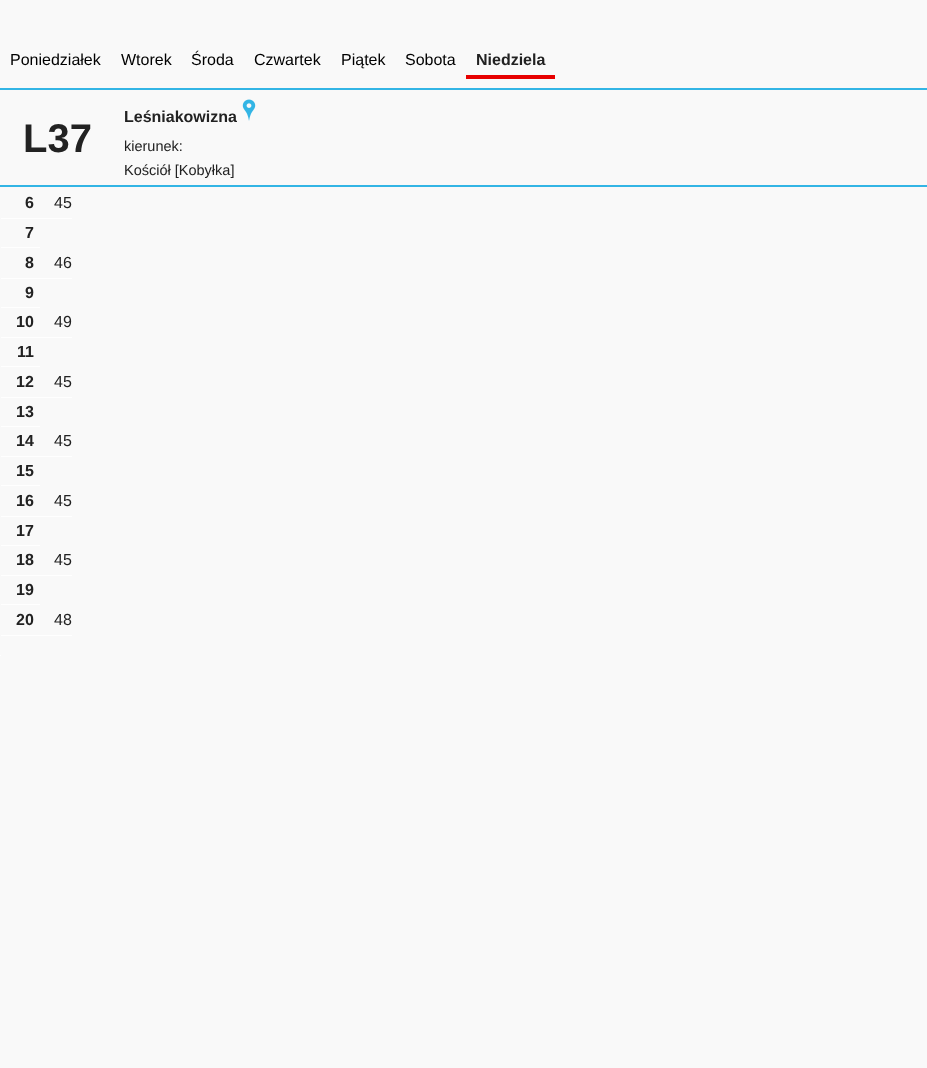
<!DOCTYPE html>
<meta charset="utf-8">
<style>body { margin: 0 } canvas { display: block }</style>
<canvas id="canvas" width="927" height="1068"></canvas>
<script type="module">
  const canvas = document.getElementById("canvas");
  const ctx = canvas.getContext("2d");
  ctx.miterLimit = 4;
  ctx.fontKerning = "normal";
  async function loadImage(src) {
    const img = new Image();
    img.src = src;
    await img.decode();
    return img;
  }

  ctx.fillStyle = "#f9f9f9";
  ctx.fillRect(0, 0, 927, 1068);
  ctx.font = "16px Liberation Sans";
  ctx.fillStyle = "#000000";
  ctx.fillText("Poniedziałek", 10, 65);
  ctx.fillText("Wtorek", 121, 65);
  ctx.fillText("Środa", 191, 65);
  ctx.fillText("Czwartek", 254, 65);
  ctx.fillText("Piątek", 341, 65);
  ctx.fillText("Sobota", 405, 65);
  ctx.fillStyle = "#e70000";
  ctx.fillRect(466, 75, 89, 4);
  ctx.font = "bold 16px Liberation Sans";
  ctx.fillStyle = "#222222";
  ctx.fillText("Niedziela", 476, 65);
  ctx.fillStyle = "#33b5e5";
  ctx.fillRect(0, 88, 927, 2);
  ctx.fillRect(0, 185, 927, 2);
  ctx.font = "bold 40px Liberation Sans";
  ctx.fillStyle = "#222222";
  ctx.fillText("L37", 23, 152);
  ctx.font = "bold 16px Liberation Sans";
  ctx.fillText("Leśniakowizna", 124, 122);
  ctx.drawImage(await loadImage("img1.png"), 242, 99, 14, 22);
  ctx.font = "14.5px Liberation Sans";
  ctx.fillText("kierunek:", 124, 151);
  ctx.fillText("Kościół [Kobyłka]", 124, 175);
  ctx.font = "bold 16px Liberation Sans";
  ctx.fillText("6", 25, 208);
  ctx.fillStyle = "#ffffff";
  ctx.fillRect(1, 218, 71, 1);
  ctx.font = "16px Liberation Sans";
  ctx.fillStyle = "#222222";
  ctx.fillText("45", 54, 208);
  ctx.fillStyle = "#ffffff";
  ctx.fillRect(1, 247, 39, 1);
  ctx.font = "bold 16px Liberation Sans";
  ctx.fillStyle = "#222222";
  ctx.fillText("7", 25, 238);
  ctx.fillText("8", 25, 268);
  ctx.fillStyle = "#ffffff";
  ctx.fillRect(1, 278, 71, 1);
  ctx.font = "16px Liberation Sans";
  ctx.fillStyle = "#222222";
  ctx.fillText("46", 54, 268);
  ctx.fillStyle = "#ffffff";
  ctx.fillRect(1, 307, 39, 1);
  ctx.font = "bold 16px Liberation Sans";
  ctx.fillStyle = "#222222";
  ctx.fillText("9", 25, 298);
  ctx.fillText("10", 16, 327);
  ctx.fillStyle = "#ffffff";
  ctx.fillRect(1, 337, 71, 1);
  ctx.font = "16px Liberation Sans";
  ctx.fillStyle = "#222222";
  ctx.fillText("49", 54, 327);
  ctx.fillStyle = "#ffffff";
  ctx.fillRect(1, 366, 39, 1);
  ctx.font = "bold 16px Liberation Sans";
  ctx.fillStyle = "#222222";
  ctx.fillText("11", 17, 357);
  ctx.fillText("12", 16, 387);
  ctx.fillStyle = "#ffffff";
  ctx.fillRect(1, 397, 71, 1);
  ctx.font = "16px Liberation Sans";
  ctx.fillStyle = "#222222";
  ctx.fillText("45", 54, 387);
  ctx.fillStyle = "#ffffff";
  ctx.fillRect(1, 426, 39, 1);
  ctx.font = "bold 16px Liberation Sans";
  ctx.fillStyle = "#222222";
  ctx.fillText("13", 16, 417);
  ctx.fillText("14", 16, 446);
  ctx.fillStyle = "#ffffff";
  ctx.fillRect(1, 456, 71, 1);
  ctx.font = "16px Liberation Sans";
  ctx.fillStyle = "#222222";
  ctx.fillText("45", 54, 446);
  ctx.fillStyle = "#ffffff";
  ctx.fillRect(1, 485, 39, 1);
  ctx.font = "bold 16px Liberation Sans";
  ctx.fillStyle = "#222222";
  ctx.fillText("15", 16, 476);
  ctx.fillText("16", 16, 506);
  ctx.fillStyle = "#ffffff";
  ctx.fillRect(1, 516, 71, 1);
  ctx.font = "16px Liberation Sans";
  ctx.fillStyle = "#222222";
  ctx.fillText("45", 54, 506);
  ctx.fillStyle = "#ffffff";
  ctx.fillRect(1, 545, 39, 1);
  ctx.font = "bold 16px Liberation Sans";
  ctx.fillStyle = "#222222";
  ctx.fillText("17", 16, 536);
  ctx.fillText("18", 16, 565);
  ctx.fillStyle = "#ffffff";
  ctx.fillRect(1, 575, 71, 1);
  ctx.font = "16px Liberation Sans";
  ctx.fillStyle = "#222222";
  ctx.fillText("45", 54, 565);
  ctx.fillStyle = "#ffffff";
  ctx.fillRect(1, 604, 39, 1);
  ctx.font = "bold 16px Liberation Sans";
  ctx.fillStyle = "#222222";
  ctx.fillText("19", 16, 595);
  ctx.fillText("20", 16, 625);
  ctx.fillStyle = "#ffffff";
  ctx.fillRect(1, 635, 71, 1);
  ctx.font = "16px Liberation Sans";
  ctx.fillStyle = "#222222";
  ctx.fillText("48", 54, 625);
  ctx.fillStyle = "#ffffff";
  ctx.fillRect(0, 655, 1, 1);
</script>
